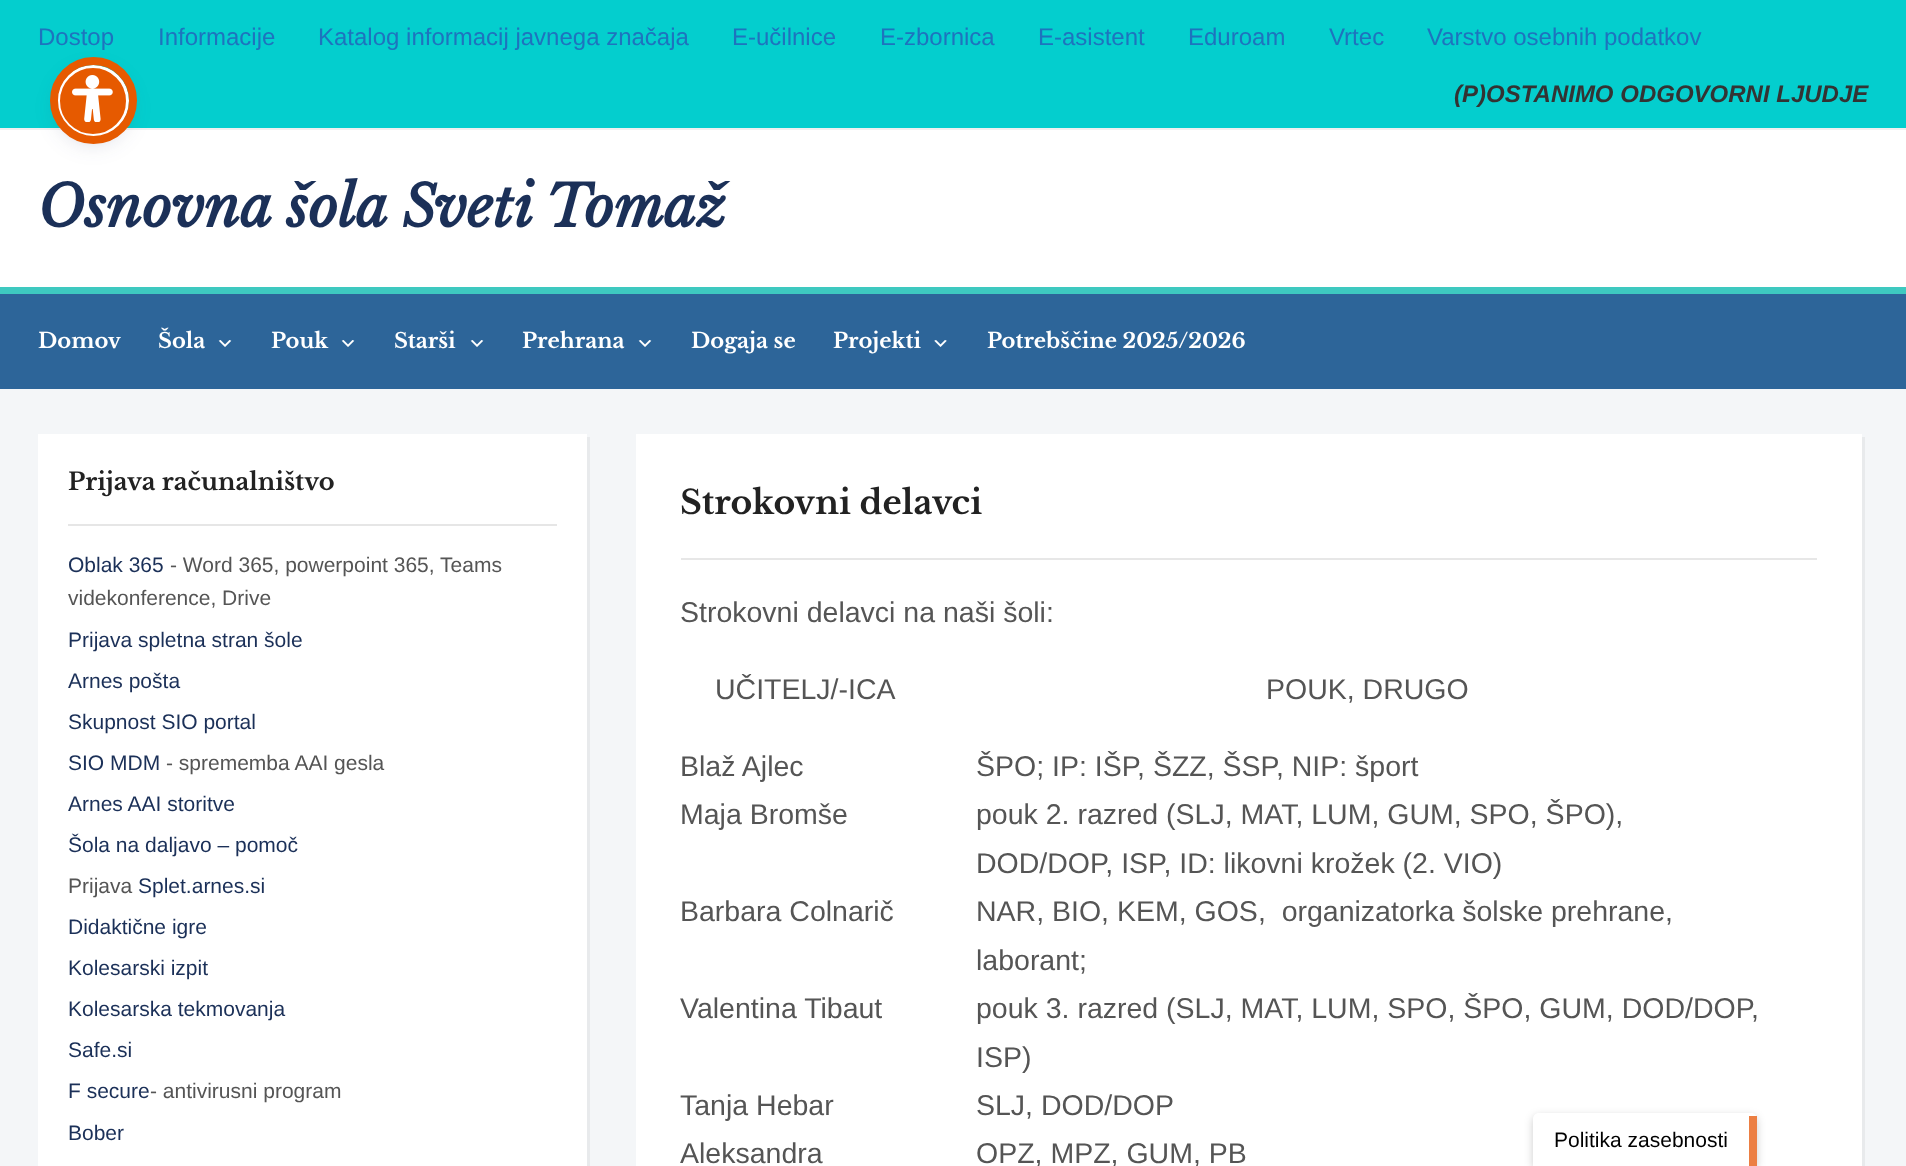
<!DOCTYPE html>
<meta charset="utf-8">
<style>body { margin: 0 } canvas { display: block }</style>
<canvas id="canvas" width="1906" height="1166"></canvas>
<script type="module">
  const canvas = document.getElementById("canvas");
  const ctx = canvas.getContext("2d");
  ctx.miterLimit = 4;
  ctx.fontKerning = "normal";
  async function loadImage(src) {
    const img = new Image();
    img.src = src;
    await img.decode();
    return img;
  }

  ctx.fillStyle = "#f4f6f8";
  ctx.fillRect(0, 0, 1906, 1166);
  ctx.fillStyle = "#ffffff";
  ctx.fillRect(0, 130, 1906, 157);
  ctx.fillStyle = "#04cece";
  ctx.fillRect(0, 0, 1906, 128);
  ctx.fillStyle = "#f0f0f0";
  ctx.fillRect(0, 128, 1906, 2);
  ctx.font = "24px Liberation Sans";
  ctx.fillStyle = "#1e73be";
  ctx.fillText("Dostop", 38, 45);
  ctx.fillText("Informacije", 158, 45);
  ctx.fillText("Katalog informacij javnega značaja", 318, 45);
  ctx.fillText("E-učilnice", 732, 45);
  ctx.fillText("E-zbornica", 880, 45);
  ctx.fillText("E-asistent", 1038, 45);
  ctx.fillText("Eduroam", 1188, 45);
  ctx.fillText("Vrtec", 1329, 45);
  ctx.fillText("Varstvo osebnih podatkov", 1427, 45);
  ctx.font = "italic bold 24px Liberation Sans";
  ctx.fillStyle = "#333333";
  ctx.fillText("(P)OSTANIMO ODGOVORNI LJUDJE", 1454, 102);
  ctx.font = "italic bold 57px Libre Baskerville";
  ctx.fillStyle = "#1b3058";
  ctx.fillText("Osnovna šola Sveti Tomaž", 38, 227);
  ctx.fillStyle = "#2d6599";
  ctx.fillRect(0, 294, 1906, 95);
  ctx.fillStyle = "#3ec9c0";
  ctx.fillRect(0, 287, 1906, 7);
  ctx.font = "bold 21px Libre Baskerville";
  ctx.fillStyle = "#ffffff";
  ctx.fillText("Domov", 38, 348);
  ctx.fillText("Šola", 158, 348);
  ctx.drawImage(await loadImage("img1.png"), 218, 340, 14, 7);
  ctx.fillText("Pouk", 271, 348);
  ctx.drawImage(await loadImage("img1.png"), 341, 340, 14, 7);
  ctx.fillText("Starši", 394, 348);
  ctx.drawImage(await loadImage("img1.png"), 470, 340, 14, 7);
  ctx.fillText("Prehrana", 522, 348);
  ctx.drawImage(await loadImage("img1.png"), 638, 340, 14, 7);
  ctx.fillText("Dogaja se", 691, 348);
  ctx.fillText("Projekti", 833, 348);
  ctx.drawImage(await loadImage("img2.png"), 934, 340, 13, 7);
  ctx.fillText("Potrebščine 2025/2026", 987, 348);
  ctx.fillStyle = "#e8eaec";
  ctx.beginPath();
  ctx.moveTo(41, 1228);
  ctx.lineTo(41, 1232);
  ctx.lineTo(590, 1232);
  ctx.lineTo(590, 437);
  ctx.lineTo(586, 437);
  ctx.lineTo(586, 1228);
  ctx.closePath();
  ctx.fill();
  ctx.fillStyle = "#ffffff";
  ctx.fillRect(38, 434, 549, 732);
  ctx.fillStyle = "#e6e6e6";
  ctx.fillRect(68, 524, 489, 2);
  ctx.font = "bold 24px Libre Baskerville";
  ctx.fillStyle = "#222222";
  ctx.fillText("Prijava računalništvo", 68, 490);
  ctx.font = "21px Liberation Sans";
  ctx.fillStyle = "#1b3058";
  ctx.fillText("Oblak 365", 68, 572);
  ctx.fillStyle = "#555555";
  ctx.fillText("- Word 365, powerpoint 365, Teams", 170, 572);
  ctx.fillText("videkonference, Drive", 68, 605);
  ctx.fillStyle = "#1b3058";
  ctx.fillText("Prijava spletna stran šole", 68, 647);
  ctx.fillText("Arnes pošta", 68, 688);
  ctx.fillText("Skupnost SIO portal", 68, 729);
  ctx.fillText("SIO MDM", 68, 770);
  ctx.fillStyle = "#555555";
  ctx.fillText("- sprememba AAI gesla", 166, 770);
  ctx.fillStyle = "#1b3058";
  ctx.fillText("Arnes AAI storitve", 68, 811);
  ctx.fillText("Šola na daljavo – pomoč", 68, 852);
  ctx.fillStyle = "#555555";
  ctx.fillText("Prijava", 68, 893);
  ctx.fillStyle = "#1b3058";
  ctx.fillText("Splet.arnes.si", 138, 893);
  ctx.fillText("Didaktične igre", 68, 934);
  ctx.fillText("Kolesarski izpit", 68, 975);
  ctx.fillText("Kolesarska tekmovanja", 68, 1016);
  ctx.fillText("Safe.si", 68, 1057);
  ctx.fillText("F secure", 68, 1098);
  ctx.fillStyle = "#555555";
  ctx.fillText("- antivirusni program", 150, 1098);
  ctx.fillStyle = "#1b3058";
  ctx.fillText("Bober", 68, 1140);
  ctx.fillStyle = "#e8eaec";
  ctx.beginPath();
  ctx.moveTo(639, 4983);
  ctx.lineTo(639, 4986);
  ctx.lineTo(1865, 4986);
  ctx.lineTo(1865, 437);
  ctx.lineTo(1862, 437);
  ctx.lineTo(1862, 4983);
  ctx.closePath();
  ctx.fill();
  ctx.fillStyle = "#ffffff";
  ctx.fillRect(636, 434, 1226, 732);
  ctx.font = "bold 33px Libre Baskerville";
  ctx.fillStyle = "#222222";
  ctx.fillText("Strokovni delavci", 680, 514);
  ctx.fillStyle = "#e7e7e7";
  ctx.fillRect(681, 558, 1136, 2);
  ctx.font = "28.5px Liberation Sans";
  ctx.fillStyle = "#555555";
  ctx.fillText("Strokovni delavci na naši šoli:", 680, 622);
  ctx.fillText("UČITELJ/-ICA", 715, 699);
  ctx.fillText("POUK, DRUGO", 1266, 699);
  ctx.fillText("Blaž Ajlec", 680, 776);
  ctx.fillText("ŠPO; IP: IŠP, ŠZZ, ŠSP, NIP: šport", 976, 776);
  ctx.fillText("Maja Bromše", 680, 824);
  ctx.fillText("pouk 2. razred (SLJ, MAT, LUM, GUM, SPO, ŠPO),", 976, 824);
  ctx.fillText("DOD/DOP, ISP, ID: likovni krožek (2. VIO)", 976, 873);
  ctx.fillText("Barbara Colnarič", 680, 921);
  ctx.fillText("NAR, BIO, KEM, GOS,  organizatorka šolske prehrane,", 976, 921);
  ctx.fillText("laborant;", 976, 970);
  ctx.fillText("Valentina Tibaut", 680, 1018);
  ctx.fillText("pouk 3. razred (SLJ, MAT, LUM, SPO, ŠPO, GUM, DOD/DOP,", 976, 1018);
  ctx.fillText("ISP)", 976, 1067);
  ctx.fillText("Tanja Hebar", 680, 1115);
  ctx.fillText("SLJ, DOD/DOP", 976, 1115);
  ctx.fillText("Aleksandra", 680, 1163);
  ctx.fillText("OPZ, MPZ, GUM, PB", 976, 1163);
  ctx.fillStyle = "rgba(93, 100, 148, 0.2)";
  ctx.filter = "blur(3px)";
  ctx.beginPath();
  ctx.roundRect(57, 68, 72, 72, 36);
  ctx.fill();
  ctx.filter = "none";
  ctx.fillStyle = "rgba(37, 44, 97, 0.15)";
  ctx.filter = "blur(11px)";
  ctx.beginPath();
  ctx.roundRect(57, 72, 72, 72, 36);
  ctx.fill();
  ctx.filter = "none";
  ctx.fillStyle = "#e65a00";
  ctx.beginPath();
  ctx.arc(93, 101, 34.5, 0, Math.PI * 2);
  ctx.fill();
  ctx.strokeStyle = "#ffffff";
  ctx.lineWidth = 3;
  ctx.stroke();
  ctx.beginPath();
  ctx.arc(93.5, 100.5, 39.5, 0, Math.PI * 2);
  ctx.strokeStyle = "#e65a00";
  ctx.lineWidth = 8;
  ctx.stroke();
  ctx.drawImage(await loadImage("img3.png"), 72, 75, 41, 47);
  ctx.fillStyle = "rgba(0, 0, 0, 0.2)";
  ctx.filter = "blur(4px)";
  ctx.beginPath();
  ctx.roundRect(1533, 1116, 224, 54, 6);
  ctx.fill();
  ctx.filter = "none";
  ctx.fillStyle = "#ffffff";
  ctx.beginPath();
  ctx.moveTo(1539, 1113);
  ctx.lineTo(1751, 1113);
  ctx.bezierCurveTo(1754.5, 1113, 1757, 1115.5, 1757, 1119);
  ctx.lineTo(1757, 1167);
  ctx.lineTo(1533, 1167);
  ctx.lineTo(1533, 1119);
  ctx.bezierCurveTo(1533, 1115.5, 1535.5, 1113, 1539, 1113);
  ctx.closePath();
  ctx.fill();
  ctx.fillStyle = "#ec7f43";
  ctx.fillRect(1749, 1116, 8, 50);
  ctx.font = "21px Liberation Sans";
  ctx.fillStyle = "#000000";
  ctx.fillText("Politika zasebnosti", 1554, 1147);
</script>
